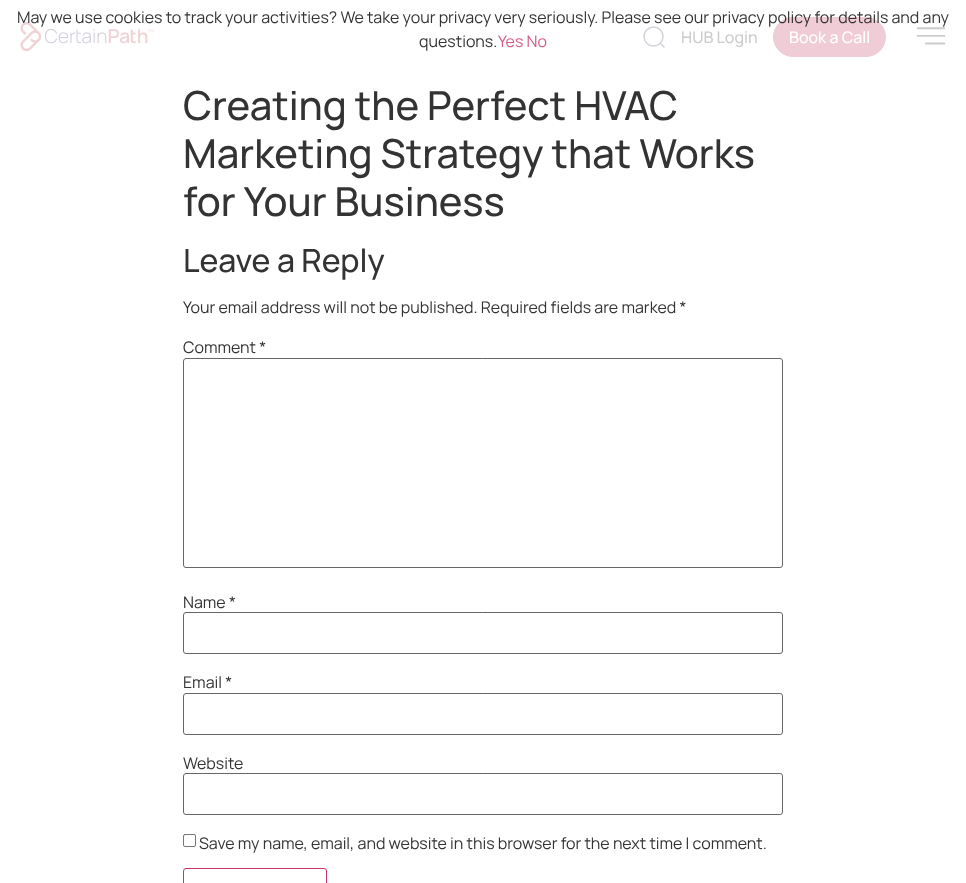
<!DOCTYPE html>
<meta charset="utf-8">
<style>body { margin: 0 } canvas { display: block }</style>
<canvas id="canvas" width="966" height="883"></canvas>
<script type="module">
  const canvas = document.getElementById("canvas");
  const ctx = canvas.getContext("2d");
  ctx.miterLimit = 4;
  ctx.fontKerning = "normal";
  async function loadImage(src) {
    const img = new Image();
    img.src = src;
    await img.decode();
    return img;
  }

  ctx.fillStyle = "#ffffff";
  ctx.fillRect(0, 0, 966, 883);
  ctx.drawImage(await loadImage("img1.png"), 20, 22, 134, 29);
  ctx.beginPath();
  ctx.arc(653.5, 36.5, 9.5, 0, Math.PI * 2);
  ctx.strokeStyle = "#d2d4db";
  ctx.lineWidth = 1.5;
  ctx.stroke();
  ctx.fillStyle = "#f0ccd6";
  ctx.beginPath();
  ctx.roundRect(773.5, 17.5, 112, 39, 19.5);
  ctx.fill();
  ctx.strokeStyle = "#f0ccd6";
  ctx.lineWidth = 1;
  ctx.stroke();
  ctx.font = "16px Manrope";
  ctx.fillStyle = "#333333";
  ctx.fillText("May we use cookies to track your activities? We take your privacy very seriously. Please see our privacy policy for details and any", 17, 23);
  ctx.fillText("questions.", 419, 47);
  ctx.fillStyle = "#d65c85";
  ctx.fillText("Yes No", 498, 47);
  ctx.beginPath();
  ctx.moveTo(660.5, 43.5);
  ctx.lineTo(664, 47);
  ctx.strokeStyle = "#d2d4db";
  ctx.lineWidth = 1.5;
  ctx.lineCap = "round";
  ctx.stroke();
  ctx.font = "500 16px Manrope";
  ctx.fillStyle = "#cccccc";
  ctx.fillText("HUB Login", 681, 43);
  ctx.fillStyle = "#ffffff";
  ctx.fillText("Book a Call", 789, 43);
  ctx.drawImage(await loadImage("img2.png"), 916, 27, 30, 18);
  ctx.font = "500 40px Manrope";
  ctx.fillStyle = "#333333";
  ctx.fillText("Creating the Perfect HVAC", 183, 120);
  ctx.fillText("Marketing Strategy that Works", 183, 168);
  ctx.fillText("for Your Business", 183, 216);
  ctx.font = "500 32px Manrope";
  ctx.fillText("Leave a Reply", 183, 272);
  ctx.font = "16px Manrope";
  ctx.fillText("Your email address will not be published. Required fields are marked *", 183, 313);
  ctx.fillText("Comment *", 183, 353);
  ctx.beginPath();
  ctx.roundRect(183.5, 358.5, 599, 209, 2.5);
  ctx.strokeStyle = "#666666";
  ctx.lineWidth = 1;
  ctx.stroke();
  ctx.fillText("Name *", 183, 608);
  ctx.beginPath();
  ctx.roundRect(183.5, 612.5, 599, 41, 2.5);
  ctx.stroke();
  ctx.fillText("Email *", 183, 688);
  ctx.beginPath();
  ctx.roundRect(183.5, 693.5, 599, 41, 2.5);
  ctx.stroke();
  ctx.fillText("Website", 183, 769);
  ctx.beginPath();
  ctx.roundRect(183.5, 773.5, 599, 41, 2.5);
  ctx.stroke();
  ctx.beginPath();
  ctx.roundRect(183.5, 834.5, 12, 12, 1.5);
  ctx.strokeStyle = "#767676";
  ctx.stroke();
  ctx.fillText("Save my name, email, and website in this browser for the next time I comment.", 199, 849);
  ctx.beginPath();
  ctx.roundRect(183.5, 868.5, 143, 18, 2.5);
  ctx.strokeStyle = "#cc3366";
  ctx.stroke();
</script>
